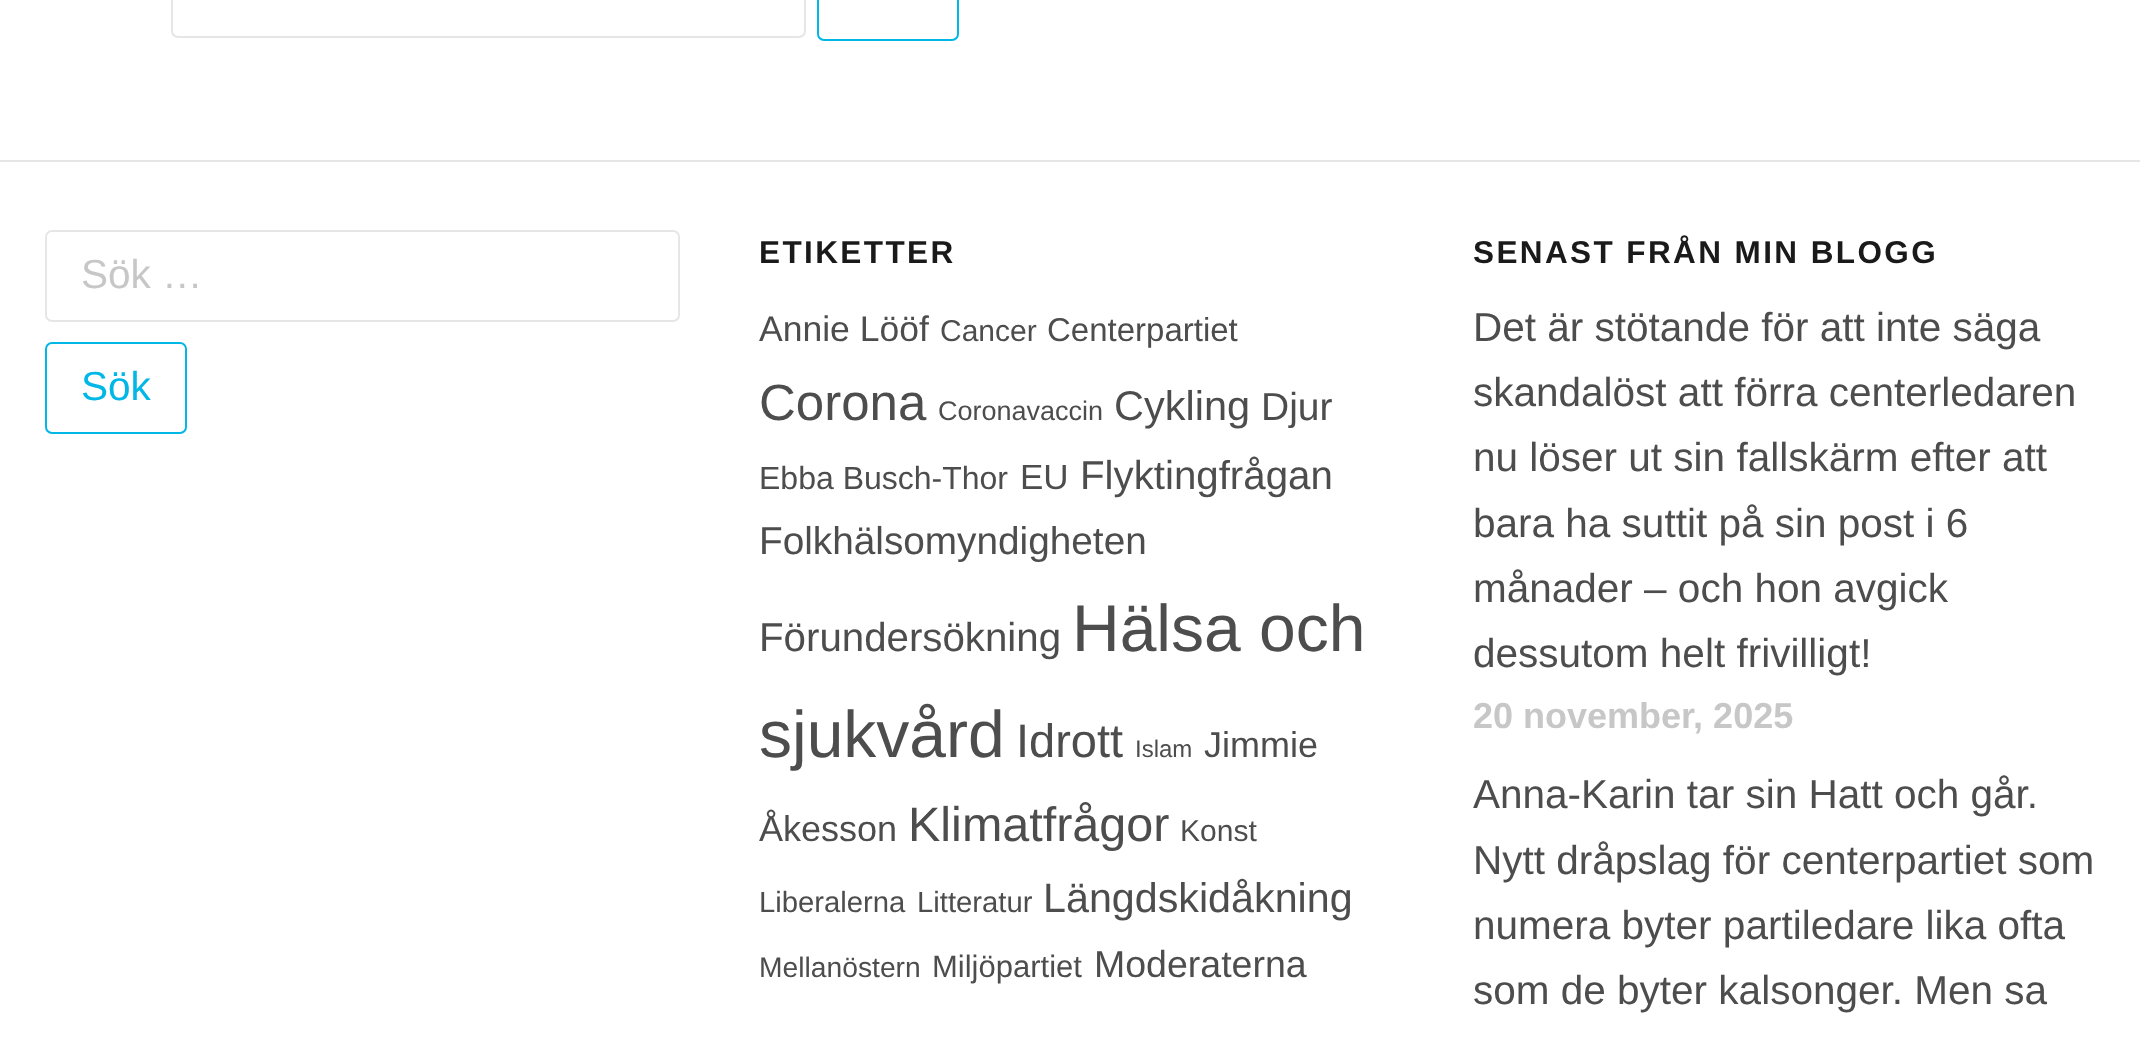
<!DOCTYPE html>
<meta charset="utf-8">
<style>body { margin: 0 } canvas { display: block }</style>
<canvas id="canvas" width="2140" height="1048"></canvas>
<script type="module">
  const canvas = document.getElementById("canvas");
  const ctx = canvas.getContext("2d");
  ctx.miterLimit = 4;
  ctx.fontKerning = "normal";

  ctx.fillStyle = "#ffffff";
  ctx.fillRect(0, 0, 2140, 1048);
  ctx.beginPath();
  ctx.roundRect(172, -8, 633, 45, 6);
  ctx.strokeStyle = "#e6e6e6";
  ctx.lineWidth = 2;
  ctx.stroke();
  ctx.beginPath();
  ctx.roundRect(818, -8, 140, 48, 6);
  ctx.strokeStyle = "#00b7e6";
  ctx.stroke();
  ctx.fillStyle = "#e6e6e6";
  ctx.fillRect(0, 160, 2140, 2);
  ctx.beginPath();
  ctx.roundRect(46, 231, 633, 90, 6);
  ctx.strokeStyle = "#e6e6e6";
  ctx.stroke();
  ctx.font = "40.5px Arimo";
  ctx.fillStyle = "#c7c7c7";
  ctx.fillText("Sök …", 81, 288);
  ctx.beginPath();
  ctx.roundRect(46, 343, 140, 90, 6);
  ctx.strokeStyle = "#00b7e6";
  ctx.stroke();
  ctx.fillStyle = "#00b7e6";
  ctx.fillText("Sök", 81, 400);
  ctx.letterSpacing = "2.4px";
  ctx.font = "bold 31.5px Arimo";
  ctx.fillStyle = "#1a1a1a";
  ctx.fillText("ETIKETTER", 759, 263);
  ctx.letterSpacing = "0px";
  ctx.font = "35.5px Arimo";
  ctx.fillStyle = "#4d4d4d";
  ctx.fillText("Annie Lööf", 759, 341);
  ctx.font = "30px Arimo";
  ctx.fillText("Cancer", 940, 341);
  ctx.font = "33px Arimo";
  ctx.fillText("Centerpartiet", 1047, 341);
  ctx.font = "51px Arimo";
  ctx.fillText("Corona", 759, 420);
  ctx.font = "27px Arimo";
  ctx.fillText("Coronavaccin", 938, 420);
  ctx.font = "41.5px Arimo";
  ctx.fillText("Cykling", 1114, 420);
  ctx.font = "39px Arimo";
  ctx.fillText("Djur", 1261, 420);
  ctx.font = "32px Arimo";
  ctx.fillText("Ebba Busch-Thor", 759, 489);
  ctx.font = "35px Arimo";
  ctx.fillText("EU", 1020, 489);
  ctx.font = "40.25px Arimo";
  ctx.fillText("Flyktingfrågan", 1080, 489);
  ctx.font = "38.75px Arimo";
  ctx.fillText("Folkhälsomyndigheten", 759, 554);
  ctx.font = "40.25px Arimo";
  ctx.fillText("Förundersökning", 759, 651);
  ctx.font = "66px Arimo";
  ctx.fillText("Hälsa och", 1072, 651);
  ctx.fillText("sjukvård", 759, 757);
  ctx.font = "47px Arimo";
  ctx.fillText("Idrott", 1016, 757);
  ctx.font = "24px Arimo";
  ctx.fillText("Islam", 1135, 757);
  ctx.font = "36px Arimo";
  ctx.fillText("Jimmie", 1204, 757);
  ctx.fillText("Åkesson", 759, 841);
  ctx.font = "48.5px Arimo";
  ctx.fillText("Klimatfrågor", 908, 841);
  ctx.font = "30px Arimo";
  ctx.fillText("Konst", 1180, 841);
  ctx.font = "29.25px Arimo";
  ctx.fillText("Liberalerna", 759, 912);
  ctx.fillText("Litteratur", 917, 912);
  ctx.font = "41.25px Arimo";
  ctx.fillText("Längdskidåkning", 1043, 912);
  ctx.font = "28.25px Arimo";
  ctx.fillText("Mellanöstern", 759, 977);
  ctx.font = "31px Arimo";
  ctx.fillText("Miljöpartiet", 932, 977);
  ctx.font = "37.5px Arimo";
  ctx.fillText("Moderaterna", 1094, 977);
  ctx.letterSpacing = "2.4px";
  ctx.font = "bold 31.5px Arimo";
  ctx.fillStyle = "#1a1a1a";
  ctx.fillText("SENAST FRÅN MIN BLOGG", 1473, 263);
  ctx.letterSpacing = "0px";
  ctx.font = "40.5px Arimo";
  ctx.fillStyle = "#4d4d4d";
  ctx.fillText("Det är stötande för att inte säga", 1473, 341);
  ctx.fillText("skandalöst att förra centerledaren", 1473, 406);
  ctx.fillText("nu löser ut sin fallskärm efter att", 1473, 471);
  ctx.fillText("bara ha suttit på sin post i 6", 1473, 537);
  ctx.fillText("månader – och hon avgick", 1473, 602);
  ctx.fillText("dessutom helt frivilligt!", 1473, 667);
  ctx.font = "bold 36px Arimo";
  ctx.fillStyle = "#c7c7c7";
  ctx.fillText("20 november, 2025", 1473, 728);
  ctx.font = "40.5px Arimo";
  ctx.fillStyle = "#4d4d4d";
  ctx.fillText("Anna-Karin tar sin Hatt och går.", 1473, 808);
  ctx.fillText("Nytt dråpslag för centerpartiet som", 1473, 874);
  ctx.fillText("numera byter partiledare lika ofta", 1473, 939);
  ctx.fillText("som de byter kalsonger. Men sa", 1473, 1004);
</script>
